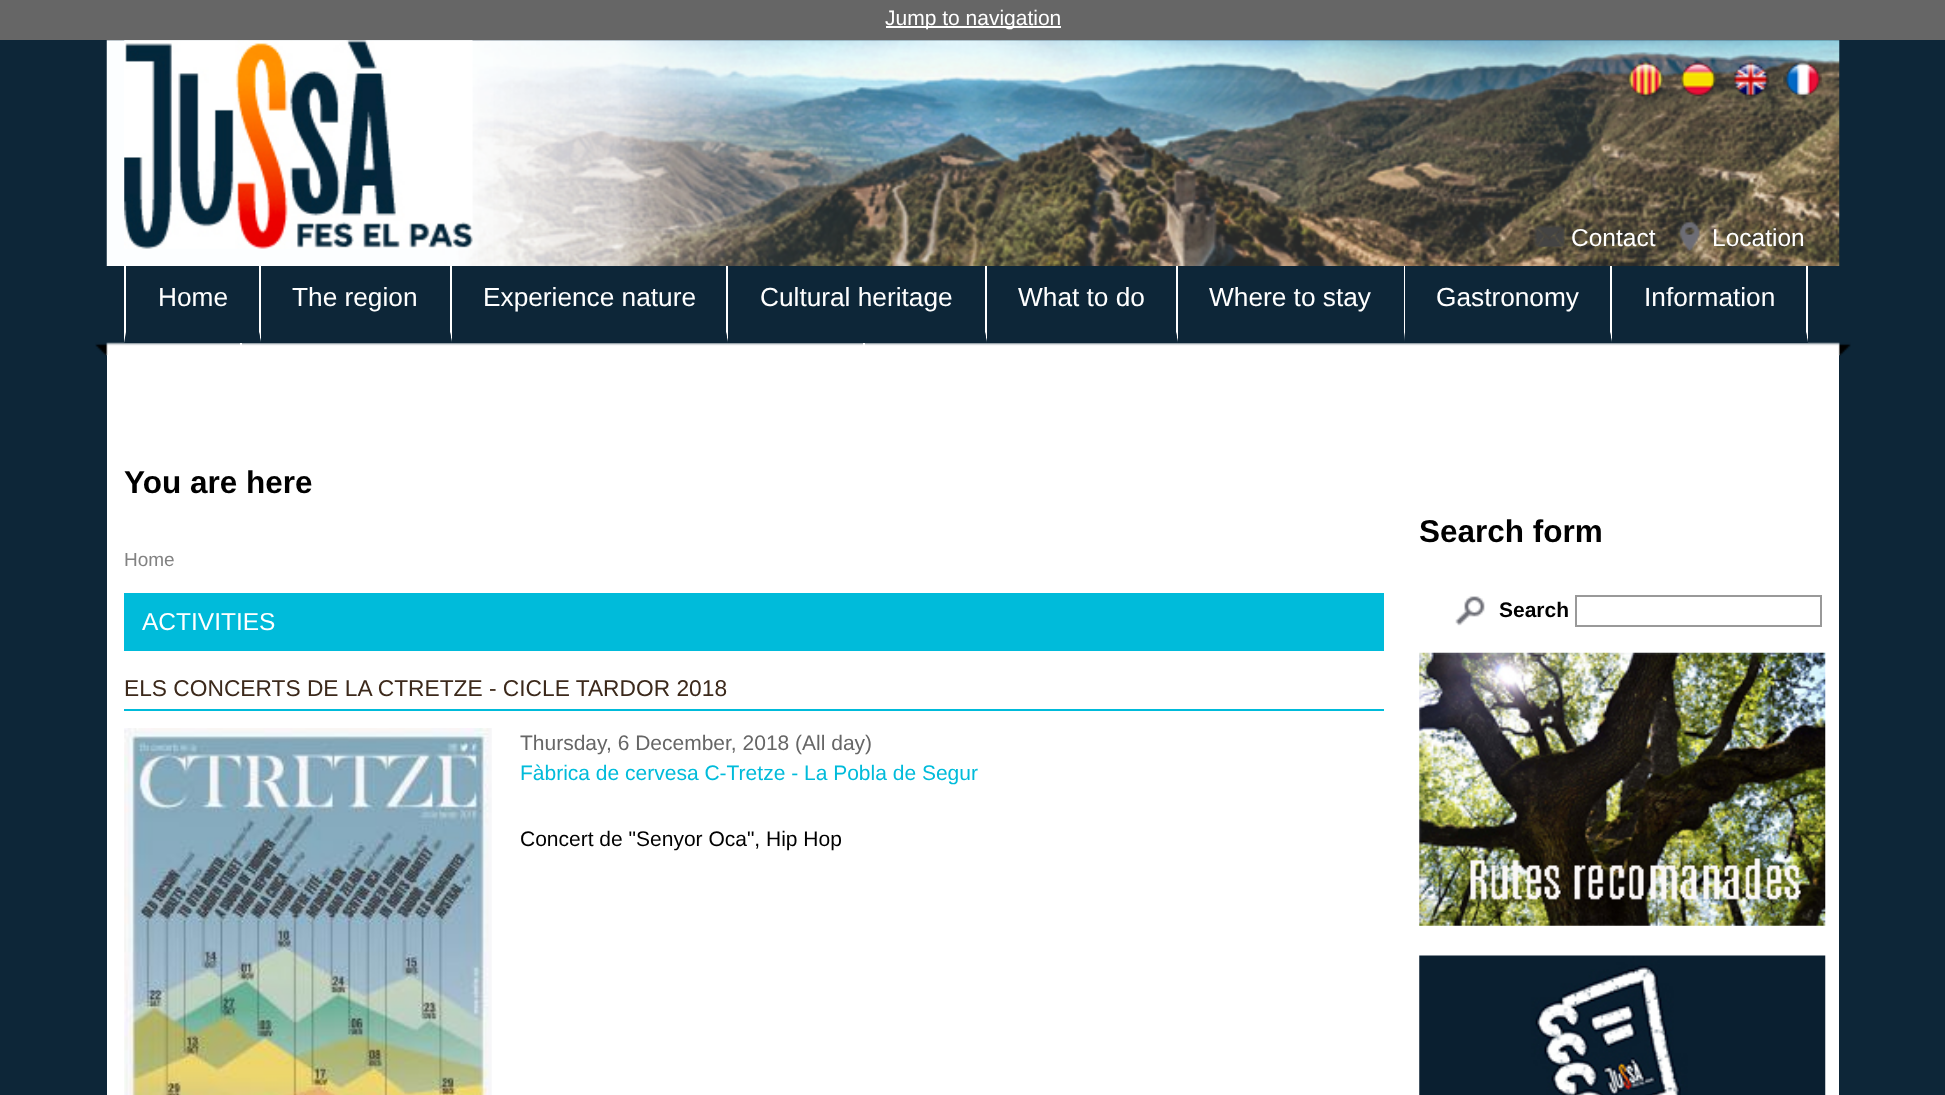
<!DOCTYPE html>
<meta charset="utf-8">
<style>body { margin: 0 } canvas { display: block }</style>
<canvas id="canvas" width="1945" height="1095"></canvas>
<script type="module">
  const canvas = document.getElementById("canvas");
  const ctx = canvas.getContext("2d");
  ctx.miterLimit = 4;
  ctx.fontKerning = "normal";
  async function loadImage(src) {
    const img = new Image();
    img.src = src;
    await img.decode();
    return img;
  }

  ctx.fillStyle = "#0d2638";
  ctx.fillRect(0, 0, 1945, 1095);
  ctx.fillStyle = "#666666";
  ctx.fillRect(0, 0, 1945, 40);
  ctx.fillStyle = "#ffffff";
  ctx.fillRect(886, 26, 175, 2);
  ctx.font = "21px Liberation Sans";
  ctx.fillText("Jump to navigation", 885, 25);
  ctx.drawImage(await loadImage("img1.png"), 106, 40, 1734, 226);
  ctx.drawImage(await loadImage("img2.png"), 124, 40, 349, 209);
  ctx.drawImage(await loadImage("img3.png"), 1627, 61, 38, 36);
  ctx.drawImage(await loadImage("img4.png"), 1680, 61, 37, 36);
  ctx.drawImage(await loadImage("img5.png"), 1732, 61, 38, 36);
  ctx.drawImage(await loadImage("img6.png"), 1783, 61, 39, 35);
  ctx.drawImage(await loadImage("img7.png"), 1534, 225, 31, 23);
  ctx.font = "24.5px Liberation Sans";
  ctx.fillText("Contact", 1571, 246);
  ctx.drawImage(await loadImage("img8.png"), 1679, 221, 21, 30);
  ctx.fillText("Location", 1712, 246);
  ctx.drawImage(await loadImage("img9.png"), 95, 342, 1756, 14);
  ctx.beginPath();
  ctx.moveTo(261, 266);
  ctx.lineTo(261, 343);
  ctx.lineTo(259, 332);
  ctx.lineTo(259, 266);
  ctx.closePath();
  ctx.fill();
  ctx.fillStyle = "#0d2638";
  ctx.beginPath();
  ctx.moveTo(261, 343);
  ctx.lineTo(124, 343);
  ctx.lineTo(126, 332);
  ctx.lineTo(259, 332);
  ctx.closePath();
  ctx.fill();
  ctx.fillStyle = "#ffffff";
  ctx.beginPath();
  ctx.moveTo(124, 343);
  ctx.lineTo(124, 266);
  ctx.lineTo(126, 266);
  ctx.lineTo(126, 332);
  ctx.closePath();
  ctx.fill();
  ctx.font = "26.25px Liberation Sans";
  ctx.fillText("Home", 158, 306);
  ctx.beginPath();
  ctx.moveTo(452, 266);
  ctx.lineTo(452, 343);
  ctx.lineTo(450, 332);
  ctx.lineTo(450, 266);
  ctx.closePath();
  ctx.fill();
  ctx.fillStyle = "#0d2638";
  ctx.beginPath();
  ctx.moveTo(452, 343);
  ctx.lineTo(261, 343);
  ctx.lineTo(261, 332);
  ctx.lineTo(450, 332);
  ctx.closePath();
  ctx.fill();
  ctx.fillStyle = "#ffffff";
  ctx.fillText("The region", 292, 306);
  ctx.beginPath();
  ctx.moveTo(728, 266);
  ctx.lineTo(728, 343);
  ctx.lineTo(726, 332);
  ctx.lineTo(726, 266);
  ctx.closePath();
  ctx.fill();
  ctx.fillStyle = "#0d2638";
  ctx.beginPath();
  ctx.moveTo(728, 343);
  ctx.lineTo(452, 343);
  ctx.lineTo(452, 332);
  ctx.lineTo(726, 332);
  ctx.closePath();
  ctx.fill();
  ctx.fillStyle = "#ffffff";
  ctx.fillText("Experience nature", 483, 306);
  ctx.beginPath();
  ctx.moveTo(987, 266);
  ctx.lineTo(987, 343);
  ctx.lineTo(985, 332);
  ctx.lineTo(985, 266);
  ctx.closePath();
  ctx.fill();
  ctx.fillStyle = "#0d2638";
  ctx.beginPath();
  ctx.moveTo(987, 343);
  ctx.lineTo(728, 343);
  ctx.lineTo(728, 332);
  ctx.lineTo(985, 332);
  ctx.closePath();
  ctx.fill();
  ctx.fillStyle = "#ffffff";
  ctx.fillText("Cultural heritage", 760, 306);
  ctx.beginPath();
  ctx.moveTo(1178, 266);
  ctx.lineTo(1178, 343);
  ctx.lineTo(1176, 332);
  ctx.lineTo(1176, 266);
  ctx.closePath();
  ctx.fill();
  ctx.fillStyle = "#0d2638";
  ctx.beginPath();
  ctx.moveTo(1178, 343);
  ctx.lineTo(987, 343);
  ctx.lineTo(987, 332);
  ctx.lineTo(1176, 332);
  ctx.closePath();
  ctx.fill();
  ctx.fillStyle = "#ffffff";
  ctx.fillText("What to do", 1018, 306);
  ctx.beginPath();
  ctx.moveTo(1405, 266);
  ctx.lineTo(1405, 343);
  ctx.lineTo(1404, 332);
  ctx.lineTo(1404, 266);
  ctx.closePath();
  ctx.fill();
  ctx.fillStyle = "#0d2638";
  ctx.beginPath();
  ctx.moveTo(1405, 343);
  ctx.lineTo(1178, 343);
  ctx.lineTo(1178, 332);
  ctx.lineTo(1404, 332);
  ctx.closePath();
  ctx.fill();
  ctx.fillStyle = "#ffffff";
  ctx.fillText("Where to stay", 1209, 306);
  ctx.beginPath();
  ctx.moveTo(1612, 266);
  ctx.lineTo(1612, 343);
  ctx.lineTo(1610, 332);
  ctx.lineTo(1610, 266);
  ctx.closePath();
  ctx.fill();
  ctx.fillStyle = "#0d2638";
  ctx.beginPath();
  ctx.moveTo(1612, 343);
  ctx.lineTo(1405, 343);
  ctx.lineTo(1405, 332);
  ctx.lineTo(1610, 332);
  ctx.closePath();
  ctx.fill();
  ctx.fillStyle = "#ffffff";
  ctx.fillText("Gastronomy", 1436, 306);
  ctx.beginPath();
  ctx.moveTo(1808, 266);
  ctx.lineTo(1808, 343);
  ctx.lineTo(1806, 332);
  ctx.lineTo(1806, 266);
  ctx.closePath();
  ctx.fill();
  ctx.fillStyle = "#0d2638";
  ctx.beginPath();
  ctx.moveTo(1808, 343);
  ctx.lineTo(1612, 343);
  ctx.lineTo(1612, 332);
  ctx.lineTo(1806, 332);
  ctx.closePath();
  ctx.fill();
  ctx.fillStyle = "#ffffff";
  ctx.fillText("Information", 1644, 306);
  ctx.fillRect(240, 343, 2, 3);
  ctx.fillRect(863, 343, 2, 3);
  ctx.fillRect(107, 355, 1732, 740);
  ctx.font = "bold 31.5px Liberation Sans";
  ctx.fillStyle = "#000000";
  ctx.fillText("You are here", 124, 493);
  ctx.font = "19px Liberation Sans";
  ctx.fillStyle = "#828282";
  ctx.fillText("Home", 124, 566);
  ctx.fillStyle = "#00bbda";
  ctx.fillRect(124, 593, 1260, 58);
  ctx.font = "24.5px Liberation Sans";
  ctx.fillStyle = "#ffffff";
  ctx.fillText("ACTIVITIES", 142, 630);
  ctx.fillStyle = "#00bbda";
  ctx.fillRect(124, 709, 1260, 2);
  ctx.font = "22.75px Liberation Sans";
  ctx.fillStyle = "#3c291b";
  ctx.fillText("ELS CONCERTS DE LA CTRETZE - CICLE TARDOR 2018", 124, 696);
  ctx.drawImage(await loadImage("img10.png"), 124, 728, 368, 367);
  ctx.font = "21px Liberation Sans";
  ctx.fillStyle = "#666666";
  ctx.fillText("Thursday, 6 December, 2018 (All day)", 520, 750);
  ctx.fillStyle = "#00bbda";
  ctx.fillText("Fàbrica de cervesa C-Tretze - La Pobla de Segur", 520, 780);
  ctx.fillStyle = "#000000";
  ctx.fillText("Concert de \"Senyor Oca\", Hip Hop", 520, 846);
  ctx.font = "bold 31.5px Liberation Sans";
  ctx.fillText("Search form", 1419, 542);
  ctx.drawImage(await loadImage("img11.png"), 1455, 596, 30, 30);
  ctx.font = "bold 21px Liberation Sans";
  ctx.fillText("Search", 1499, 617);
  ctx.strokeStyle = "#999999";
  ctx.lineWidth = 2;
  ctx.strokeRect(1576, 596, 245, 30);
  ctx.drawImage(await loadImage("img12.png"), 1419, 652, 407, 274);
  ctx.drawImage(await loadImage("img13.png"), 1419, 955, 407, 140);
</script>
